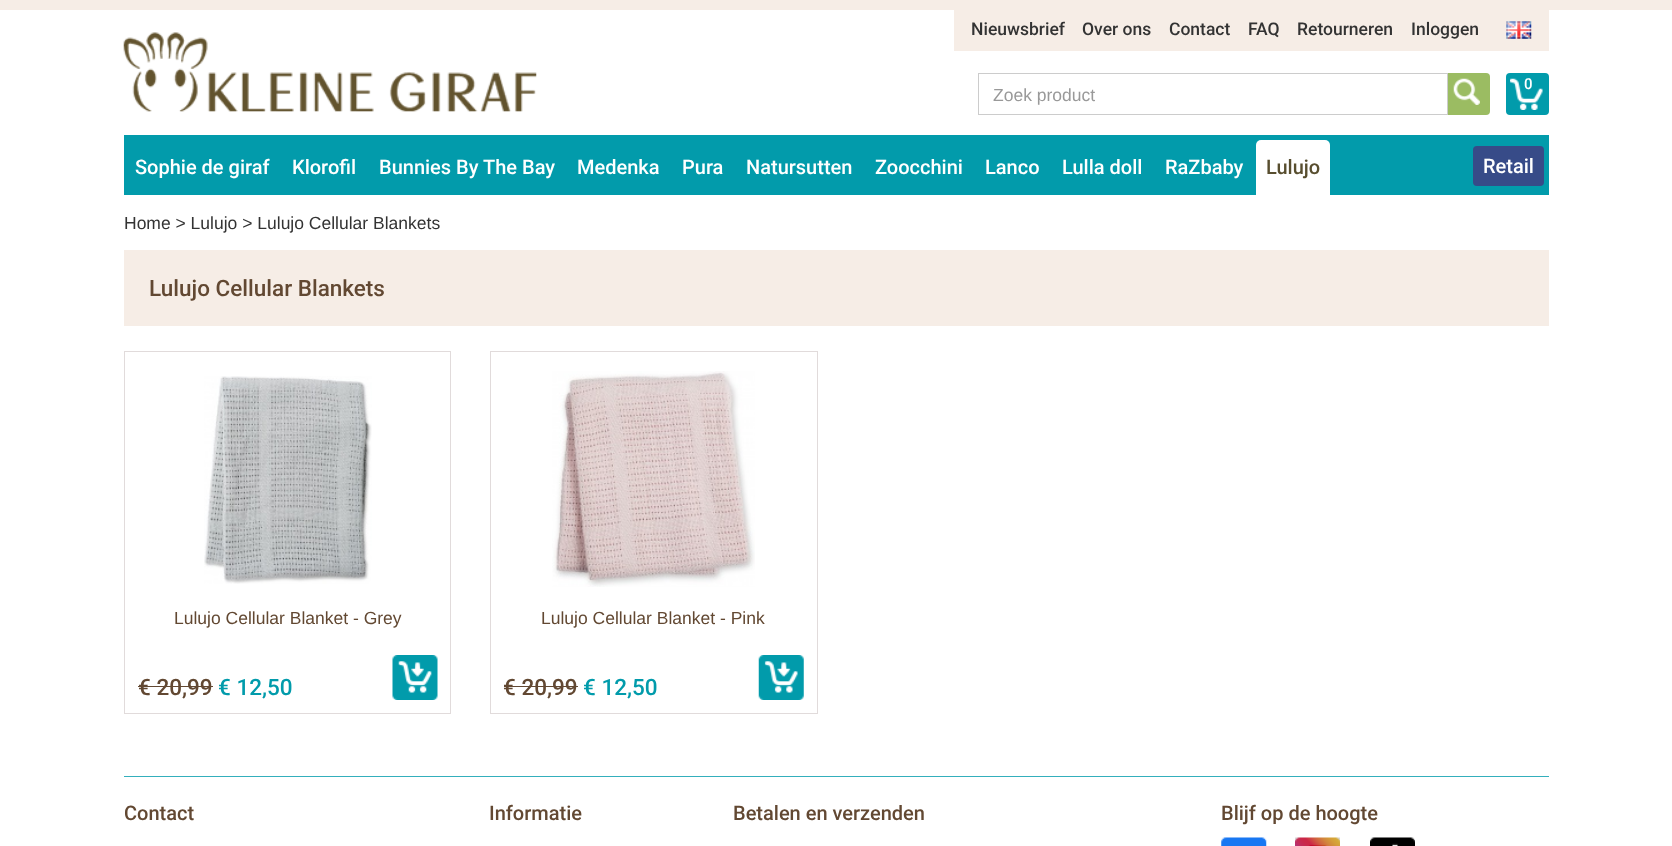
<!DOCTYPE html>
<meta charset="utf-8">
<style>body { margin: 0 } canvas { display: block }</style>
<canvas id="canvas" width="1672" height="846"></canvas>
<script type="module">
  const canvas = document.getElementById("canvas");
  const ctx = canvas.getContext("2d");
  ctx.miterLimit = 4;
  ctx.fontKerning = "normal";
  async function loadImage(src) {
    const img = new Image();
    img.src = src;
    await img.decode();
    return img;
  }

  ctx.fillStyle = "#ffffff";
  ctx.fillRect(0, 0, 1672, 846);
  ctx.fillStyle = "#f6ede6";
  ctx.fillRect(0, 0, 1672, 10);
  ctx.fillRect(954, 10, 595, 41);
  ctx.font = "500 17.5px Roboto";
  ctx.fillStyle = "#333333";
  ctx.fillText("Nieuwsbrief", 971, 35);
  ctx.fillText("Over ons", 1082, 35);
  ctx.fillText("Contact", 1169, 35);
  ctx.fillText("FAQ", 1248, 35);
  ctx.fillText("Retourneren", 1297, 35);
  ctx.fillText("Inloggen", 1411, 35);
  ctx.drawImage(await loadImage("img1.png"), 1506, 21, 26, 18);
  ctx.drawImage(await loadImage("img2.png"), 123, 32, 414, 80);
  ctx.fillStyle = "#019bab";
  ctx.beginPath();
  ctx.roundRect(1506, 73, 43, 42, 4);
  ctx.fill();
  ctx.drawImage(await loadImage("img3.png"), 1510, 78, 33, 32);
  ctx.font = "500 15px Roboto";
  ctx.fillStyle = "#ffffff";
  ctx.fillText("0", 1524, 89);
  ctx.fillStyle = "#9bbc62";
  ctx.beginPath();
  ctx.roundRect(1446, 73, 44, 42, [0, 4, 4, 0]);
  ctx.fill();
  ctx.fillStyle = "#ffffff";
  ctx.fillRect(1446, 74, 1, 40);
  ctx.strokeStyle = "#cccccc";
  ctx.strokeRect(978.5, 73.5, 469, 41);
  ctx.font = "17.5px Liberation Sans";
  ctx.fillStyle = "#999999";
  ctx.fillText("Zoek product", 993, 101);
  ctx.drawImage(await loadImage("img4.png"), 1453, 78, 27, 27);
  ctx.fillStyle = "#029bab";
  ctx.fillRect(124, 135, 1425, 60);
  ctx.font = "500 20px Roboto";
  ctx.fillStyle = "#ffffff";
  ctx.fillText("Sophie de giraf", 135, 174);
  ctx.fillText("Klorofil", 292, 174);
  ctx.fillText("Bunnies By The Bay", 379, 174);
  ctx.fillText("Medenka", 577, 174);
  ctx.fillText("Pura", 682, 174);
  ctx.fillText("Natursutten", 746, 174);
  ctx.fillText("Zoocchini", 875, 174);
  ctx.fillText("Lanco", 985, 174);
  ctx.fillText("Lulla doll", 1062, 174);
  ctx.fillText("RaZbaby", 1165, 174);
  ctx.beginPath();
  ctx.roundRect(1256, 140, 74, 55, [5, 5, 0, 0]);
  ctx.fill();
  ctx.fillStyle = "#584e2f";
  ctx.fillText("Lulujo", 1266, 174);
  ctx.fillStyle = "#374b88";
  ctx.beginPath();
  ctx.roundRect(1473, 146, 71, 40, 4);
  ctx.fill();
  ctx.fillStyle = "#ffffff";
  ctx.fillText("Retail", 1483, 173);
  ctx.font = "17.5px Liberation Sans";
  ctx.fillStyle = "#333333";
  ctx.fillText("Home > Lulujo > Lulujo Cellular Blankets", 124, 229);
  ctx.fillStyle = "#f6ede6";
  ctx.fillRect(124, 250, 1425, 76);
  ctx.font = "500 22.5px Roboto";
  ctx.fillStyle = "#624832";
  ctx.fillText("Lulujo Cellular Blankets", 149, 296);
  ctx.strokeStyle = "#e1dbdb";
  ctx.strokeRect(124.5, 351.5, 326, 362);
  ctx.drawImage(await loadImage("img5.png"), 204, 376, 168, 208);
  ctx.font = "17.5px Liberation Sans";
  ctx.fillText("Lulujo Cellular Blanket - Grey", 174, 624);
  ctx.font = "500 22.5px Roboto";
  ctx.fillText("€ 20,99", 138, 695);
  ctx.fillRect(138, 686, 75, 1);
  ctx.fillStyle = "#019bab";
  ctx.fillText("€ 12,50", 218, 695);
  ctx.drawImage(await loadImage("img6.png"), 392, 655, 46, 45);
  ctx.strokeRect(490.5, 351.5, 327, 362);
  ctx.drawImage(await loadImage("img7.png"), 552, 371, 203, 216);
  ctx.font = "17.5px Liberation Sans";
  ctx.fillStyle = "#624832";
  ctx.fillText("Lulujo Cellular Blanket - Pink", 541, 624);
  ctx.font = "500 22.5px Roboto";
  ctx.fillText("€ 20,99", 503, 695);
  ctx.fillRect(504, 686, 74, 1);
  ctx.fillStyle = "#019bab";
  ctx.fillText("€ 12,50", 583, 695);
  ctx.drawImage(await loadImage("img8.png"), 758, 655, 46, 45);
  ctx.fillStyle = "#34afbc";
  ctx.fillRect(124, 776, 1425, 1);
  ctx.font = "500 20px Roboto";
  ctx.fillStyle = "#624832";
  ctx.fillText("Contact", 124, 820);
  ctx.fillText("Informatie", 489, 820);
  ctx.fillText("Betalen en verzenden", 733, 820);
  ctx.fillText("Blijf op de hoogte", 1221, 820);
  ctx.drawImage(await loadImage("img9.png"), 1221, 837, 46, 9);
  ctx.drawImage(await loadImage("img10.png"), 1295, 837, 45, 9);
  ctx.drawImage(await loadImage("img11.png"), 1370, 837, 45, 9);
</script>
